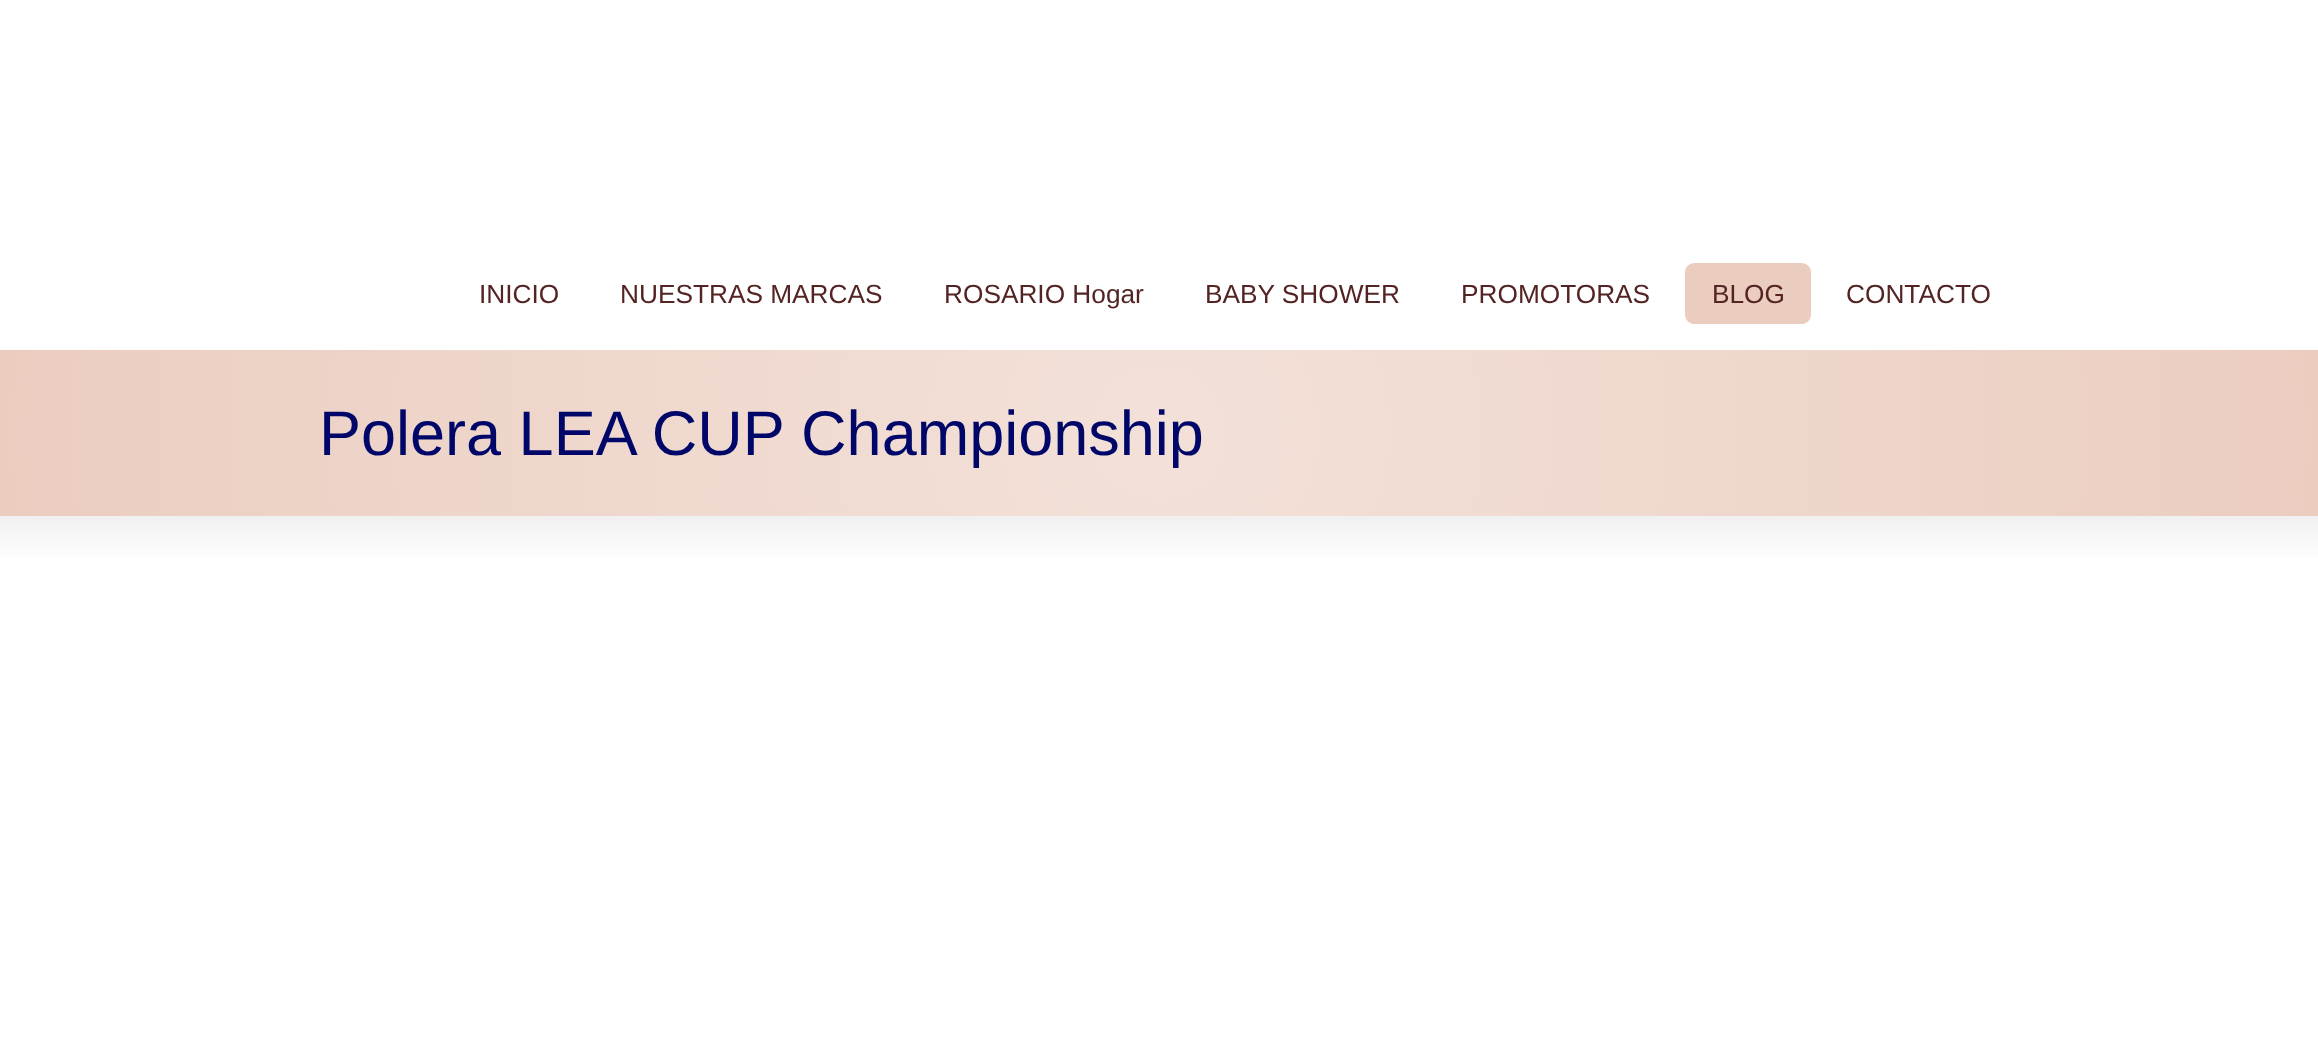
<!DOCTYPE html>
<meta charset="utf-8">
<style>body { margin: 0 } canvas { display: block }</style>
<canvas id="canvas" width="2318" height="1050"></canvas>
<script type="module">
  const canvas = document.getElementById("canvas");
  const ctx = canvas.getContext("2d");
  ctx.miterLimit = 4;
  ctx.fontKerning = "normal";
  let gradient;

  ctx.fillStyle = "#ffffff";
  ctx.fillRect(0, 0, 2318, 1050);
  ctx.font = "26.25px Liberation Sans";
  ctx.fillStyle = "#542323";
  ctx.fillText("INICIO", 479, 303);
  ctx.fillText("NUESTRAS MARCAS", 620, 303);
  ctx.fillText("ROSARIO Hogar", 944, 303);
  ctx.fillText("BABY SHOWER", 1205, 303);
  ctx.fillText("PROMOTORAS", 1461, 303);
  ctx.fillStyle = "#ebcdbf";
  ctx.beginPath();
  ctx.roundRect(1685, 263, 126, 61, 9);
  ctx.fill();
  ctx.fillStyle = "#542323";
  ctx.fillText("BLOG", 1712, 303);
  ctx.fillText("CONTACTO", 1846, 303);
  gradient = ctx.createRadialGradient(1159, 433, 0, 1159, 433, 1162);
  gradient.addColorStop(0, "#f3e1d9");
  gradient.addColorStop(1, "#ebcdc0");
  ctx.fillStyle = gradient;
  ctx.fillRect(0, 350, 2318, 166);
  ctx.font = "63px Liberation Sans";
  ctx.fillStyle = "#000768";
  ctx.fillText("Polera LEA CUP Championship", 319, 455);
  gradient = ctx.createLinearGradient(1159, 516, 1159, 564);
  gradient.addColorStop(0, "#f0f0f0");
  gradient.addColorStop(1, "#ffffff");
  ctx.fillStyle = gradient;
  ctx.fillRect(0, 516, 2318, 40);
</script>
